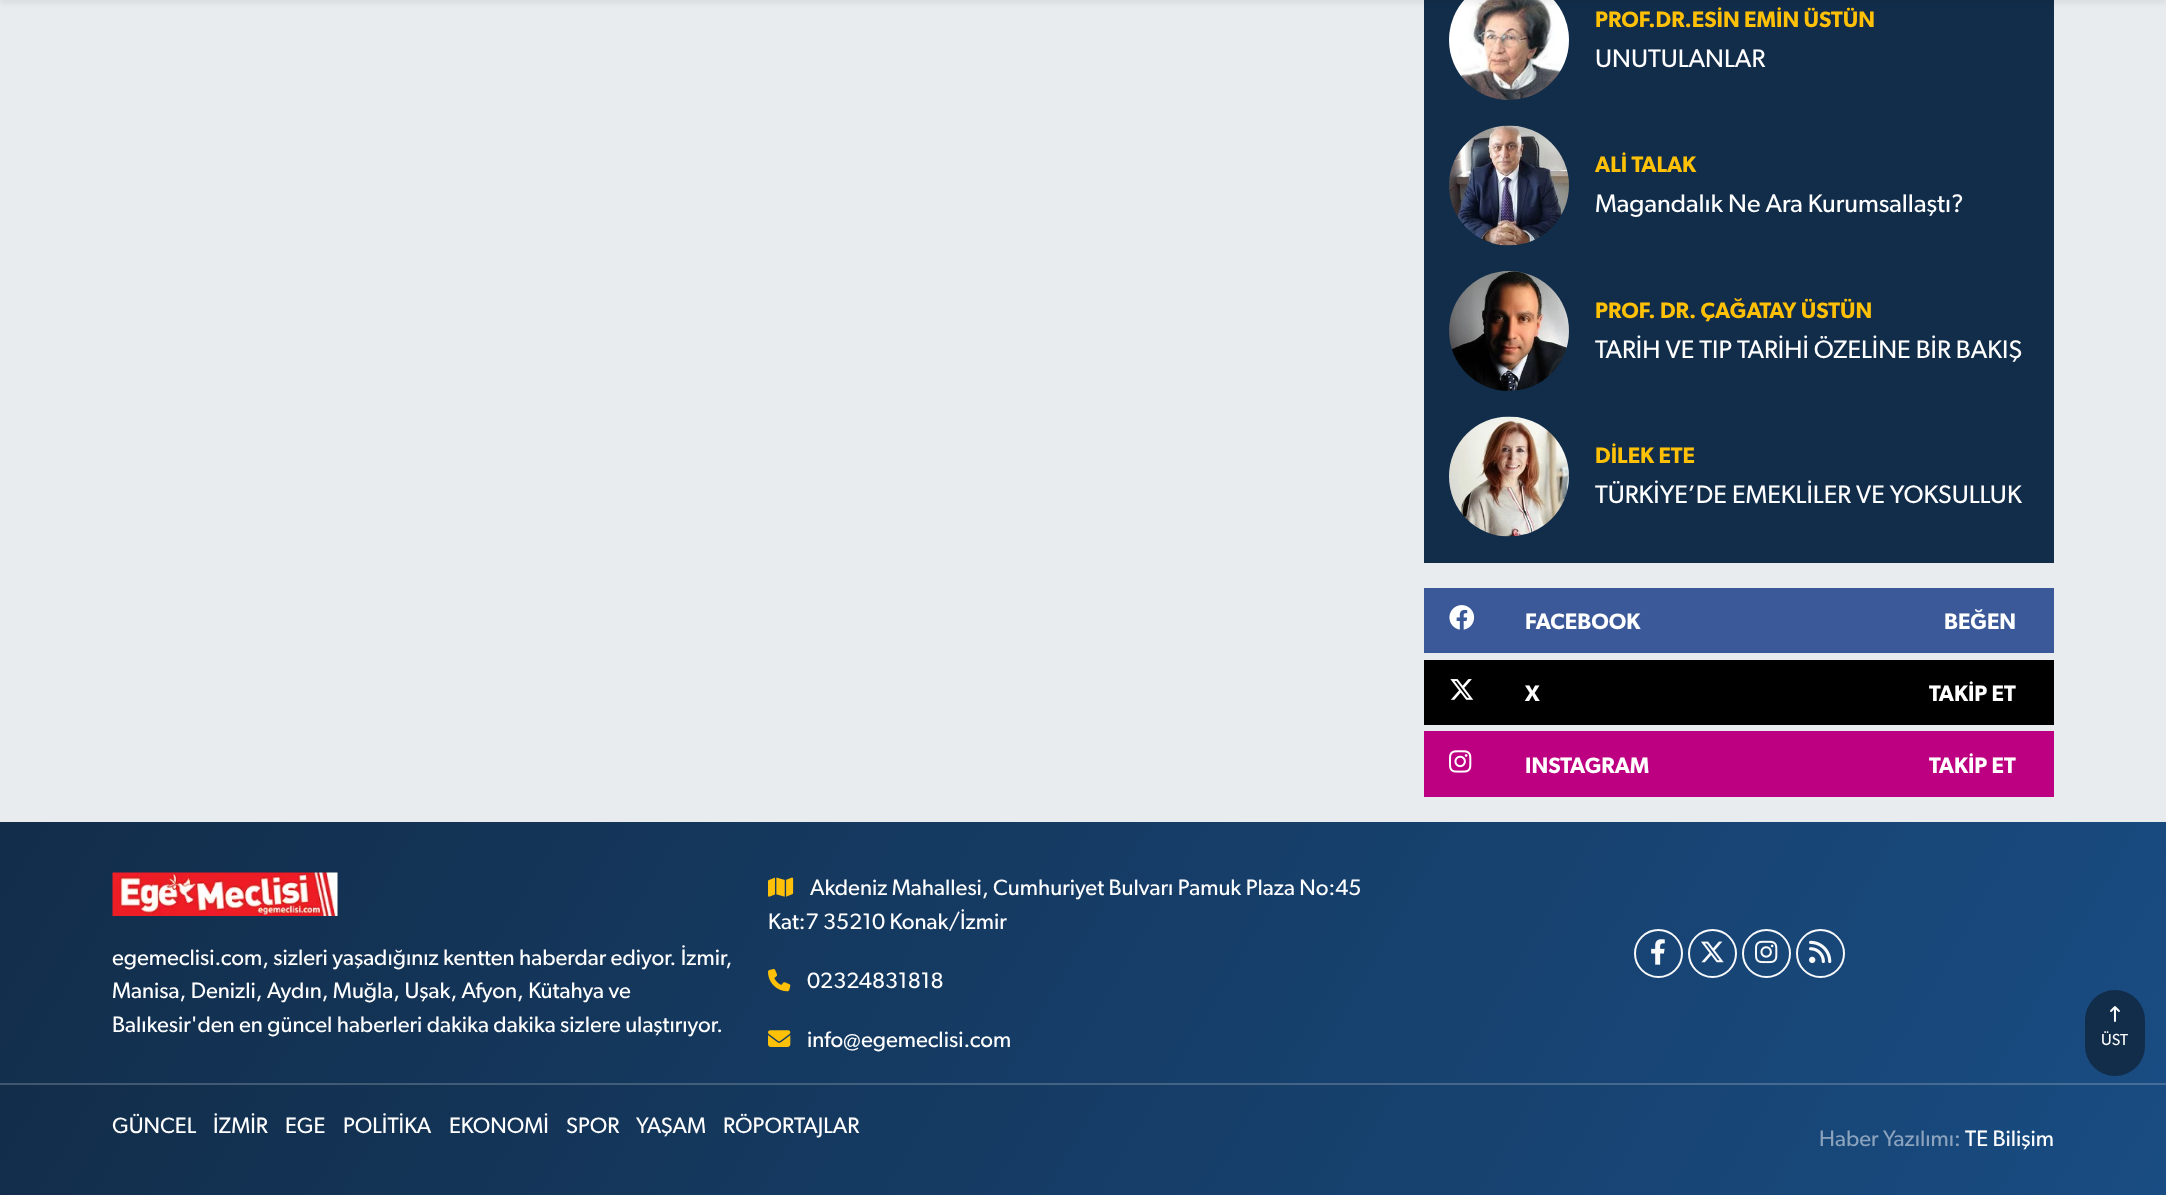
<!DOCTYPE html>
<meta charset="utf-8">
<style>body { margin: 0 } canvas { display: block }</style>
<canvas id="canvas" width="2166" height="1195"></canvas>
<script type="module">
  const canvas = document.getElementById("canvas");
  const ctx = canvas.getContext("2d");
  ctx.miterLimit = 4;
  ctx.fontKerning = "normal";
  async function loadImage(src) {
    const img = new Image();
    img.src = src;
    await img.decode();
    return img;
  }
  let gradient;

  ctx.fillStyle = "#e9ecef";
  ctx.fillRect(0, 0, 2166, 1195);
  ctx.fillStyle = "#122d4a";
  ctx.fillRect(1424, 0, 630, 563);
  ctx.drawImage(await loadImage("img1.png"), 1449, 0, 120, 100);
  ctx.fillStyle = "rgba(0, 0, 0, 0.07)";
  ctx.filter = "blur(3px)";
  ctx.beginPath();
  ctx.rect(0, -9, 2166, 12);
  ctx.fill();
  ctx.filter = "none";
  ctx.font = "600 22.3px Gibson";
  ctx.fillStyle = "#ffc107";
  ctx.fillText("PROF.DR.ESİN EMİN ÜSTÜN", 1595, 27);
  ctx.font = "25.5px Gibson";
  ctx.fillStyle = "#ffffff";
  ctx.fillText("UNUTULANLAR", 1595, 67);
  ctx.drawImage(await loadImage("img2.png"), 1449, 125, 120, 121);
  ctx.font = "600 22.3px Gibson";
  ctx.fillStyle = "#ffc107";
  ctx.fillText("ALİ TALAK", 1595, 172);
  ctx.font = "25.5px Gibson";
  ctx.fillStyle = "#ffffff";
  ctx.fillText("Magandalık Ne Ara Kurumsallaştı?", 1595, 212);
  ctx.drawImage(await loadImage("img3.png"), 1449, 271, 120, 120);
  ctx.font = "600 22.3px Gibson";
  ctx.fillStyle = "#ffc107";
  ctx.fillText("PROF. DR. ÇAĞATAY ÜSTÜN", 1595, 318);
  ctx.save();
  ctx.beginPath();
  ctx.rect(1595, 335, 433, 33);
  ctx.clip();
  ctx.font = "25.5px Gibson";
  ctx.fillStyle = "#ffffff";
  ctx.fillText("TARİH VE TIP TARİHİ ÖZELİNE BİR BAKIŞ", 1595, 358);
  ctx.restore();
  ctx.drawImage(await loadImage("img4.png"), 1449, 416, 120, 121);
  ctx.fillText("DİLEK ETE", 1595, 463);
  ctx.save();
  ctx.beginPath();
  ctx.rect(1595, 480, 433, 33);
  ctx.clip();
  ctx.font = "25.5px Gibson";
  ctx.fillStyle = "#ffffff";
  ctx.fillText("TÜRKİYE’DE EMEKLİLER VE YOKSULLUK", 1595, 503);
  ctx.restore();
  ctx.fillStyle = "#3b5998";
  ctx.fillRect(1424, 588, 630, 65);
  ctx.drawImage(await loadImage("img5.png"), 1449, 605, 26, 25);
  ctx.fillStyle = "#ffffff";
  ctx.fillText("FACEBOOK", 1525, 629);
  ctx.fillText("BEĞEN", 1944, 629);
  ctx.fillStyle = "#000000";
  ctx.fillRect(1424, 660, 630, 65);
  ctx.drawImage(await loadImage("img6.png"), 1450, 679, 24, 21);
  ctx.fillStyle = "#ffffff";
  ctx.fillText("X", 1525, 701);
  ctx.fillText("TAKİP ET", 1929, 701);
  ctx.fillStyle = "#bd0082";
  ctx.fillRect(1424, 731, 630, 66);
  ctx.drawImage(await loadImage("img7.png"), 1449, 750, 23, 23);
  ctx.fillStyle = "#ffffff";
  ctx.fillText("INSTAGRAM", 1525, 773);
  ctx.fillText("TAKİP ET", 1929, 773);
  gradient = ctx.createLinearGradient(214, 451, 1952, 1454);
  gradient.addColorStop(0, "#122d4a");
  gradient.addColorStop(1, "#194c82");
  ctx.fillStyle = gradient;
  ctx.fillRect(0, 822, 2166, 261);
  gradient = ctx.createLinearGradient(214, 712, 1952, 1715);
  gradient.addColorStop(0, "#41576e");
  gradient.addColorStop(1, "#47709b");
  ctx.fillStyle = gradient;
  ctx.fillRect(0, 1083, 2166, 2);
  ctx.drawImage(await loadImage("img8.png"), 112, 872, 226, 44);
  ctx.font = "22.3px Gibson";
  ctx.fillStyle = "#ffffff";
  ctx.fillText("egemeclisi.com, sizleri yaşadığınız kentten haberdar ediyor. İzmir,", 112, 965);
  ctx.fillText("Manisa, Denizli, Aydın, Muğla, Uşak, Afyon, Kütahya ve", 112, 998);
  ctx.fillText("Balıkesir'den en güncel haberleri dakika dakika sizlere ulaştırıyor.", 112, 1032);
  ctx.drawImage(await loadImage("img9.png"), 768, 877, 26, 20);
  ctx.fillText("Akdeniz Mahallesi, Cumhuriyet Bulvarı Pamuk Plaza No:45", 810, 895);
  ctx.fillText("Kat:7 35210 Konak/İzmir", 768, 929);
  ctx.drawImage(await loadImage("img10.png"), 768, 969, 23, 23);
  ctx.fillText("02324831818", 807, 988);
  ctx.drawImage(await loadImage("img11.png"), 768, 1030, 23, 17);
  ctx.fillText("info@egemeclisi.com", 807, 1047);
  ctx.beginPath();
  ctx.arc(1658.5, 953.5, 23.5, 0, Math.PI * 2);
  ctx.strokeStyle = "#f8f9fa";
  ctx.lineWidth = 2;
  ctx.stroke();
  ctx.drawImage(await loadImage("img12.png"), 1651, 939, 14, 26);
  ctx.beginPath();
  ctx.arc(1712.5, 953.5, 23.5, 0, Math.PI * 2);
  ctx.stroke();
  ctx.drawImage(await loadImage("img13.png"), 1701, 941, 23, 22);
  ctx.beginPath();
  ctx.arc(1766.5, 953.5, 23.5, 0, Math.PI * 2);
  ctx.stroke();
  ctx.drawImage(await loadImage("img14.png"), 1755, 940, 23, 24);
  ctx.beginPath();
  ctx.arc(1820.5, 953.5, 23.5, 0, Math.PI * 2);
  ctx.stroke();
  ctx.drawImage(await loadImage("img15.png"), 1809, 940, 23, 24);
  gradient = ctx.createLinearGradient(247, 657, 1919, 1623);
  gradient.addColorStop(0, "#122d4a");
  gradient.addColorStop(1, "#194c82");
  ctx.fillStyle = gradient;
  ctx.fillRect(0, 1085, 2166, 110);
  ctx.fillStyle = "#ffffff";
  ctx.fillText("GÜNCEL", 112, 1133);
  ctx.fillText("İZMİR", 213, 1133);
  ctx.fillText("EGE", 285, 1133);
  ctx.fillText("POLİTİKA", 343, 1133);
  ctx.fillText("EKONOMİ", 449, 1133);
  ctx.fillText("SPOR", 566, 1133);
  ctx.fillText("YAŞAM", 636, 1133);
  ctx.fillText("RÖPORTAJLAR", 723, 1133);
  ctx.fillStyle = "#8ca3bd";
  ctx.fillText("Haber Yazılımı:", 1819, 1146);
  ctx.fillStyle = "#ffffff";
  ctx.fillText("TE Bilişim", 1965, 1146);
  ctx.fillStyle = "#122d4a";
  ctx.beginPath();
  ctx.roundRect(2085, 990, 60, 86, 30);
  ctx.fill();
  ctx.drawImage(await loadImage("img16.png"), 2110, 1006, 10, 16);
  ctx.font = "16px Gibson";
  ctx.fillStyle = "#ffffff";
  ctx.fillText("ÜST", 2101, 1045);
</script>
